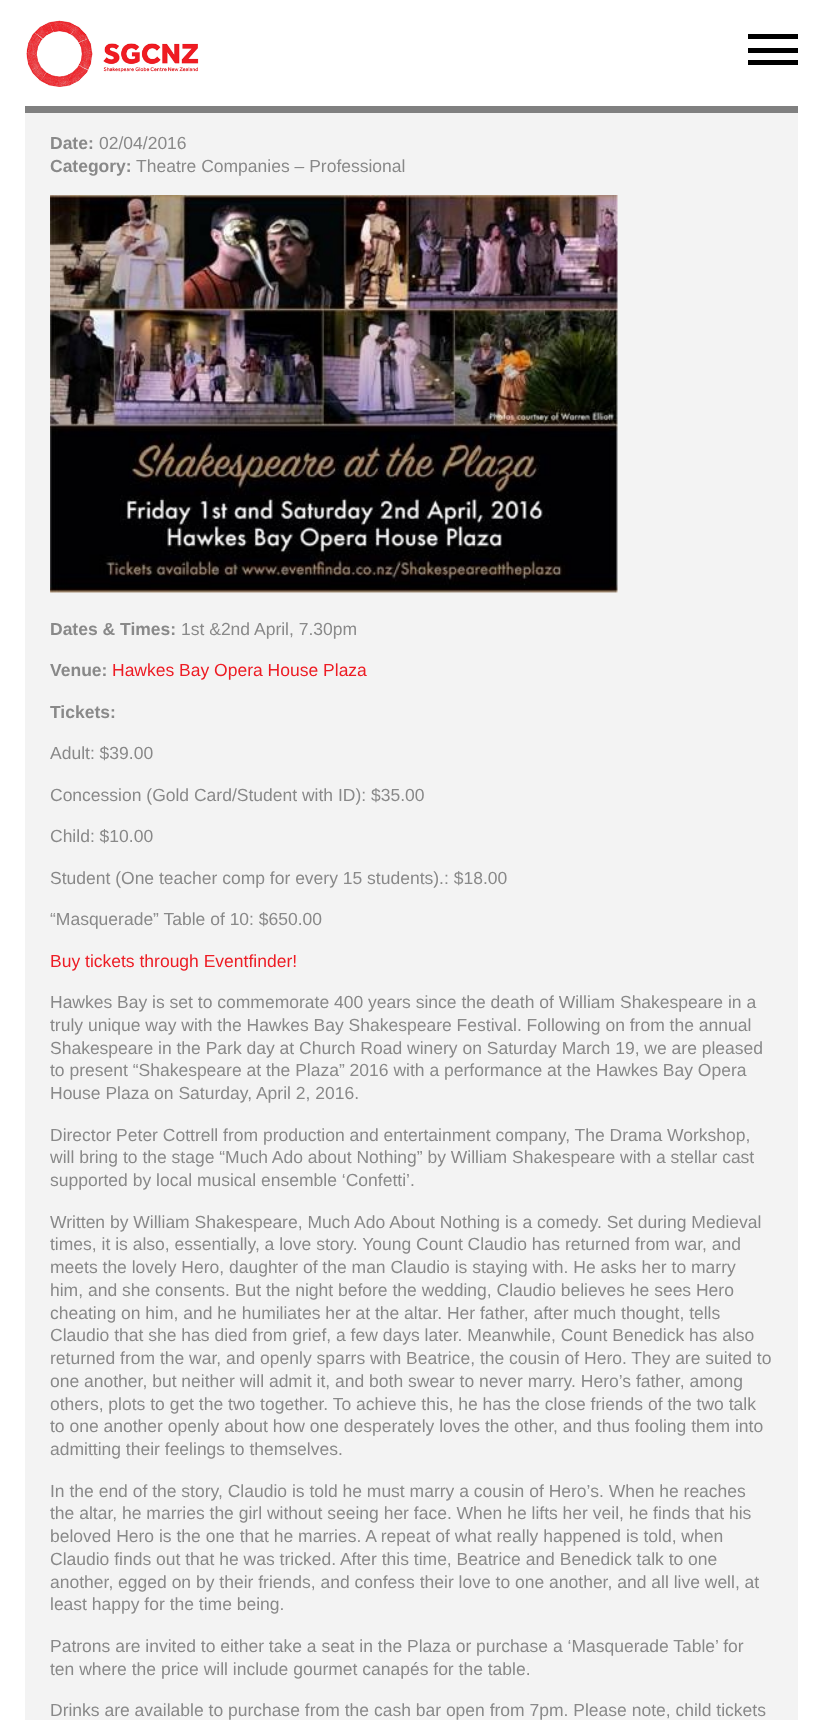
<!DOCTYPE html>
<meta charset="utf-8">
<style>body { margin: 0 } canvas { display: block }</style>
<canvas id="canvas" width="822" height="1720"></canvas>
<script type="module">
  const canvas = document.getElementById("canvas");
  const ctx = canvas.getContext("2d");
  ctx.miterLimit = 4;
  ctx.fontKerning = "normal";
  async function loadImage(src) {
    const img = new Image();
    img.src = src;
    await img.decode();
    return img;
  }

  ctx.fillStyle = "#ffffff";
  ctx.fillRect(0, 0, 822, 1720);
  ctx.drawImage(await loadImage("img1.png"), 26, 20, 173, 67);
  ctx.fillStyle = "#000000";
  ctx.fillRect(748, 34, 50, 5);
  ctx.fillRect(748, 48, 50, 5);
  ctx.fillRect(748, 60, 50, 5);
  ctx.fillStyle = "#f3f3f3";
  ctx.fillRect(25, 113, 773, 1607);
  ctx.fillStyle = "#808080";
  ctx.fillRect(25, 106, 773, 7);
  ctx.font = "bold 17.5px Liberation Sans";
  ctx.fillStyle = "#898989";
  ctx.fillText("Date:", 50, 149);
  ctx.font = "17.5px Liberation Sans";
  ctx.fillText("02/04/2016", 99, 149);
  ctx.font = "bold 17.5px Liberation Sans";
  ctx.fillText("Category:", 50, 172);
  ctx.font = "17.5px Liberation Sans";
  ctx.fillText("Theatre Companies – Professional", 136, 172);
  ctx.drawImage(await loadImage("img2.png"), 50, 195, 568, 398);
  ctx.font = "bold 17.5px Liberation Sans";
  ctx.fillText("Dates & Times:", 50, 635);
  ctx.font = "17.5px Liberation Sans";
  ctx.fillText("1st &2nd April, 7.30pm", 181, 635);
  ctx.font = "bold 17.5px Liberation Sans";
  ctx.fillText("Venue:", 50, 676);
  ctx.font = "17.5px Liberation Sans";
  ctx.fillStyle = "#ed1c24";
  ctx.fillText("Hawkes Bay Opera House Plaza", 112, 676);
  ctx.font = "bold 17.5px Liberation Sans";
  ctx.fillStyle = "#898989";
  ctx.fillText("Tickets:", 50, 718);
  ctx.font = "17.5px Liberation Sans";
  ctx.fillText("Adult: $39.00", 50, 759);
  ctx.fillText("Concession (Gold Card/Student with ID): $35.00", 50, 801);
  ctx.fillText("Child: $10.00", 50, 842);
  ctx.fillText("Student (One teacher comp for every 15 students).: $18.00", 50, 884);
  ctx.fillText("“Masquerade” Table of 10: $650.00", 50, 925);
  ctx.fillStyle = "#ed1c24";
  ctx.fillText("Buy tickets through Eventfinder!", 50, 967);
  ctx.fillStyle = "#898989";
  ctx.fillText("Hawkes Bay is set to commemorate 400 years since the death of William Shakespeare in a", 50, 1008);
  ctx.fillText("truly unique way with the Hawkes Bay Shakespeare Festival. Following on from the annual", 50, 1031);
  ctx.fillText("Shakespeare in the Park day at Church Road winery on Saturday March 19, we are pleased", 50, 1054);
  ctx.fillText("to present “Shakespeare at the Plaza” 2016 with a performance at the Hawkes Bay Opera", 50, 1076);
  ctx.fillText("House Plaza on Saturday, April 2, 2016.", 50, 1099);
  ctx.fillText("Director Peter Cottrell from production and entertainment company, The Drama Workshop,", 50, 1141);
  ctx.fillText("will bring to the stage “Much Ado about Nothing” by William Shakespeare with a stellar cast", 50, 1163);
  ctx.fillText("supported by local musical ensemble ‘Confetti’.", 50, 1186);
  ctx.fillText("Written by William Shakespeare, Much Ado About Nothing is a comedy. Set during Medieval", 50, 1228);
  ctx.fillText("times, it is also, essentially, a love story. Young Count Claudio has returned from war, and", 50, 1250);
  ctx.fillText("meets the lovely Hero, daughter of the man Claudio is staying with. He asks her to marry", 50, 1273);
  ctx.fillText("him, and she consents. But the night before the wedding, Claudio believes he sees Hero", 50, 1296);
  ctx.fillText("cheating on him, and he humiliates her at the altar. Her father, after much thought, tells", 50, 1319);
  ctx.fillText("Claudio that she has died from grief, a few days later. Meanwhile, Count Benedick has also", 50, 1341);
  ctx.fillText("returned from the war, and openly sparrs with Beatrice, the cousin of Hero. They are suited to", 50, 1364);
  ctx.fillText("one another, but neither will admit it, and both swear to never marry. Hero’s father, among", 50, 1387);
  ctx.fillText("others, plots to get the two together. To achieve this, he has the close friends of the two talk", 50, 1410);
  ctx.fillText("to one another openly about how one desperately loves the other, and thus fooling them into", 50, 1432);
  ctx.fillText("admitting their feelings to themselves.", 50, 1455);
  ctx.fillText("In the end of the story, Claudio is told he must marry a cousin of Hero’s. When he reaches", 50, 1497);
  ctx.fillText("the altar, he marries the girl without seeing her face. When he lifts her veil, he finds that his", 50, 1519);
  ctx.fillText("beloved Hero is the one that he marries. A repeat of what really happened is told, when", 50, 1542);
  ctx.fillText("Claudio finds out that he was tricked. After this time, Beatrice and Benedick talk to one", 50, 1565);
  ctx.fillText("another, egged on by their friends, and confess their love to one another, and all live well, at", 50, 1588);
  ctx.fillText("least happy for the time being.", 50, 1610);
  ctx.fillText("Patrons are invited to either take a seat in the Plaza or purchase a ‘Masquerade Table’ for", 50, 1652);
  ctx.fillText("ten where the price will include gourmet canapés for the table.", 50, 1675);
  ctx.fillText("Drinks are available to purchase from the cash bar open from 7pm. Please note, child tickets", 50, 1716);
</script>
